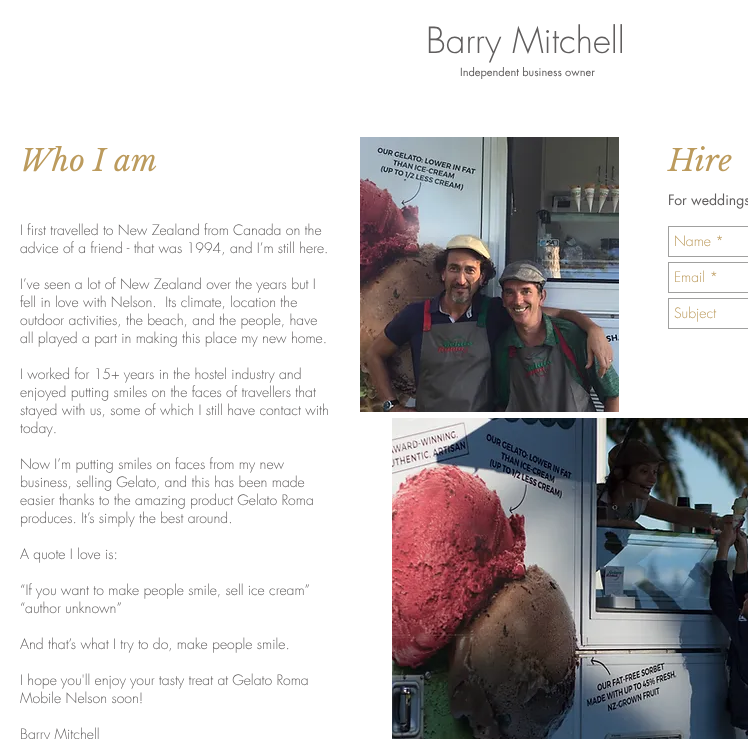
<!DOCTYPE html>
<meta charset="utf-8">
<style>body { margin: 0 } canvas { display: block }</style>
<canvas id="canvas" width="748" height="739"></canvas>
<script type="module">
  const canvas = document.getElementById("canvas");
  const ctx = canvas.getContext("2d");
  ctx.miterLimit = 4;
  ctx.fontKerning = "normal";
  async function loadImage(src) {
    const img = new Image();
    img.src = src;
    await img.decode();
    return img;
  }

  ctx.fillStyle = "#ffffff";
  ctx.fillRect(0, 0, 748, 739);
  ctx.font = "300 35px futura";
  ctx.fillStyle = "#605e5e";
  ctx.fillText("Barry Mitchell", 426, 53);
  ctx.font = "11px futura";
  ctx.fillText("Independent business owner", 460, 76);
  ctx.font = "italic 30px Libre Baskerville";
  ctx.fillStyle = "#bc9b5d";
  ctx.fillText("Who I am", 20, 171);
  ctx.drawImage(await loadImage("img1.png"), 360, 137, 259, 275);
  ctx.fillText("Hire", 668, 171);
  ctx.font = "14px futura";
  ctx.fillStyle = "#605e5e";
  ctx.fillText("For weddings", 668, 205);
  ctx.font = "300 14px futura";
  ctx.fillText("I first travelled to New Zealand from Canada on the", 20, 235);
  ctx.fillText("advice of a friend - that was 1994, and I’m still here.", 20, 253);
  ctx.fillText("I’ve seen a lot of New Zealand over the years but I", 20, 289);
  ctx.fillText("fell in love with Nelson.  Its climate, location the", 20, 307);
  ctx.fillText("outdoor activities, the beach, and the people, have", 20, 325);
  ctx.fillText("all played a part in making this place my new home.", 20, 343);
  ctx.fillText("I worked for 15+ years in the hostel industry and", 20, 379);
  ctx.fillText("enjoyed putting smiles on the faces of travellers that", 20, 397);
  ctx.fillText("stayed with us, some of which I still have contact with", 20, 415);
  ctx.fillText("today.", 20, 433);
  ctx.fillText("Now I’m putting smiles on faces from my new", 20, 469);
  ctx.fillText("business, selling Gelato, and this has been made", 20, 487);
  ctx.fillText("easier thanks to the amazing product Gelato Roma", 20, 505);
  ctx.fillText("produces. It’s simply the best around.", 20, 523);
  ctx.fillText("A quote I love is:", 20, 559);
  ctx.fillText("“If you want to make people smile, sell ice cream”", 20, 595);
  ctx.fillText("“author unknown”", 20, 613);
  ctx.fillText("And that’s what I try to do, make people smile.", 20, 649);
  ctx.fillText("I hope you'll enjoy your tasty treat at Gelato Roma", 20, 685);
  ctx.fillText("Mobile Nelson soon!", 20, 703);
  ctx.fillText("Barry Mitchell", 20, 739);
  ctx.strokeStyle = "#a0a09f";
  ctx.strokeRect(668.5, 226.5, 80, 30);
  ctx.fillStyle = "#bc9b5d";
  ctx.fillText("Name *", 674, 246);
  ctx.strokeRect(668.5, 262.5, 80, 30);
  ctx.fillText("Email *", 674, 282);
  ctx.strokeRect(668.5, 298.5, 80, 30);
  ctx.fillText("Subject", 674, 318);
  ctx.drawImage(await loadImage("img2.png"), 392, 418, 356, 321);
</script>
